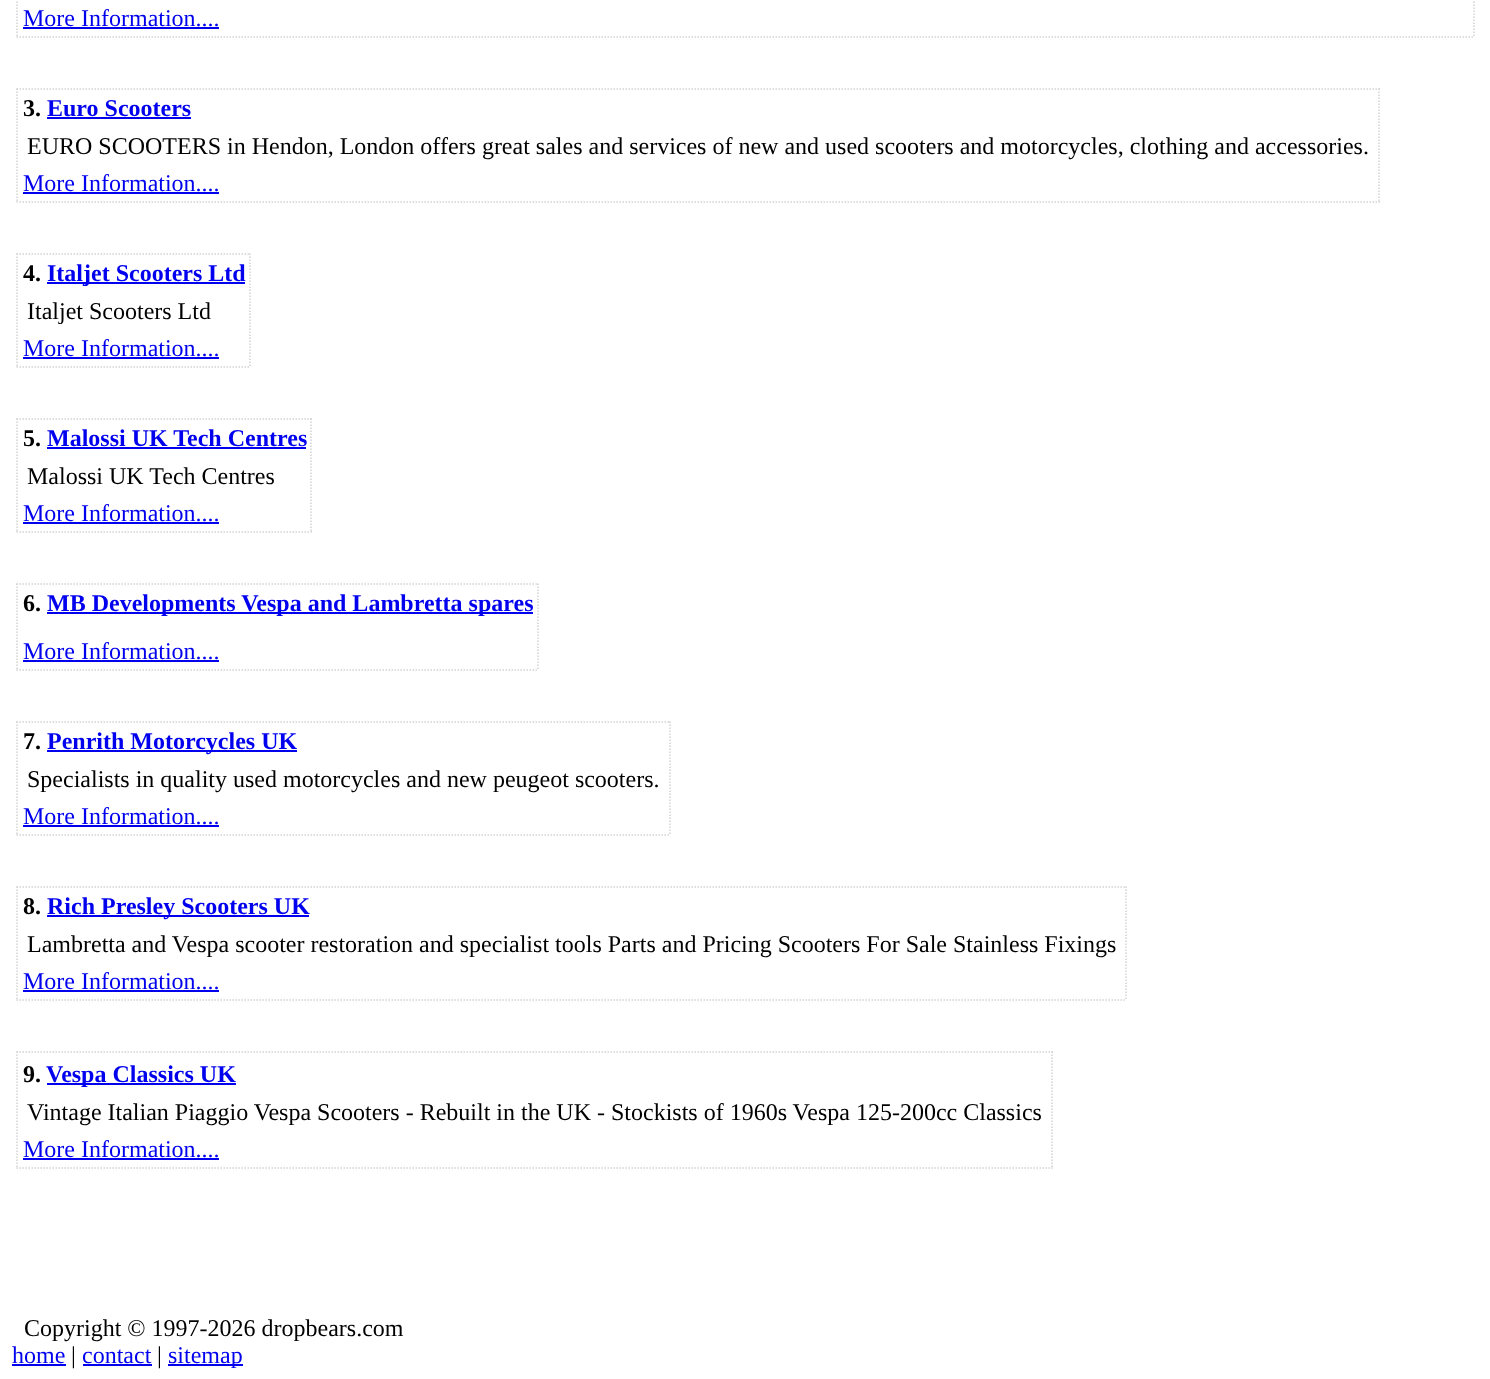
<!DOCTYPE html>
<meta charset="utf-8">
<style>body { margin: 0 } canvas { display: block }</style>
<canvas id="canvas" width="1490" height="1379"></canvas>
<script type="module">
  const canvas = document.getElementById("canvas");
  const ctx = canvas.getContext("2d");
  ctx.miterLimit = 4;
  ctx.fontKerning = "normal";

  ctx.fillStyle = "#ffffff";
  ctx.fillRect(0, 0, 1490, 1379);
  ctx.beginPath();
  ctx.moveTo(1474, -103.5);
  ctx.lineTo(1474, 37.5);
  ctx.strokeStyle = "#d3d3d3";
  ctx.lineWidth = 1.5;
  ctx.setLineDash([1.5, 1.5]);
  ctx.stroke();
  ctx.beginPath();
  ctx.moveTo(16.5, 37);
  ctx.lineTo(1474.5, 37);
  ctx.stroke();
  ctx.beginPath();
  ctx.moveTo(17, -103.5);
  ctx.lineTo(17, 37.5);
  ctx.stroke();
  ctx.font = "24px Liberation Serif";
  ctx.fillStyle = "#0000ee";
  ctx.fillText("More Information....", 23, 26);
  ctx.fillRect(23, 27, 196, 2);
  ctx.beginPath();
  ctx.moveTo(16.5, 89);
  ctx.lineTo(1380, 89);
  ctx.stroke();
  ctx.beginPath();
  ctx.moveTo(1379, 88.5);
  ctx.lineTo(1379, 202.5);
  ctx.stroke();
  ctx.beginPath();
  ctx.moveTo(16.5, 202);
  ctx.lineTo(1380, 202);
  ctx.stroke();
  ctx.beginPath();
  ctx.moveTo(17, 88.5);
  ctx.lineTo(17, 202.5);
  ctx.stroke();
  ctx.font = "bold 24px Liberation Serif";
  ctx.fillStyle = "#000000";
  ctx.fillText("3.", 23, 116);
  ctx.fillStyle = "#0000ee";
  ctx.fillText("Euro Scooters", 47, 116);
  ctx.fillRect(47, 117, 144, 2);
  ctx.font = "24px Liberation Serif";
  ctx.fillStyle = "#000000";
  ctx.fillText("EURO SCOOTERS in Hendon, London offers great sales and services of new and used scooters and motorcycles, clothing and accessories.", 27, 154);
  ctx.fillStyle = "#0000ee";
  ctx.fillText("More Information....", 23, 191);
  ctx.fillRect(23, 192, 196, 2);
  ctx.beginPath();
  ctx.moveTo(16.5, 254);
  ctx.lineTo(250.5, 254);
  ctx.stroke();
  ctx.beginPath();
  ctx.moveTo(250, 253.5);
  ctx.lineTo(250, 367.5);
  ctx.stroke();
  ctx.beginPath();
  ctx.moveTo(16.5, 367);
  ctx.lineTo(250.5, 367);
  ctx.stroke();
  ctx.beginPath();
  ctx.moveTo(17, 253.5);
  ctx.lineTo(17, 367.5);
  ctx.stroke();
  ctx.font = "bold 24px Liberation Serif";
  ctx.fillStyle = "#000000";
  ctx.fillText("4.", 23, 281);
  ctx.fillStyle = "#0000ee";
  ctx.fillRect(47, 282, 198, 2);
  ctx.fillText("Italjet Scooters Ltd", 47, 281);
  ctx.font = "24px Liberation Serif";
  ctx.fillStyle = "#000000";
  ctx.fillText("Italjet Scooters Ltd", 27, 319);
  ctx.fillStyle = "#0000ee";
  ctx.fillText("More Information....", 23, 356);
  ctx.fillRect(23, 357, 196, 2);
  ctx.beginPath();
  ctx.moveTo(16.5, 419);
  ctx.lineTo(312, 419);
  ctx.stroke();
  ctx.beginPath();
  ctx.moveTo(311, 418.5);
  ctx.lineTo(311, 532.5);
  ctx.stroke();
  ctx.beginPath();
  ctx.moveTo(16.5, 532);
  ctx.lineTo(312, 532);
  ctx.stroke();
  ctx.beginPath();
  ctx.moveTo(17, 418.5);
  ctx.lineTo(17, 532.5);
  ctx.stroke();
  ctx.font = "bold 24px Liberation Serif";
  ctx.fillStyle = "#000000";
  ctx.fillText("5.", 23, 446);
  ctx.fillStyle = "#0000ee";
  ctx.fillText("Malossi UK Tech Centres", 47, 446);
  ctx.fillRect(47, 447, 259, 2);
  ctx.font = "24px Liberation Serif";
  ctx.fillStyle = "#000000";
  ctx.fillText("Malossi UK Tech Centres", 27, 484);
  ctx.fillStyle = "#0000ee";
  ctx.fillText("More Information....", 23, 521);
  ctx.fillRect(23, 522, 196, 2);
  ctx.beginPath();
  ctx.moveTo(16.5, 584);
  ctx.lineTo(538.5, 584);
  ctx.stroke();
  ctx.beginPath();
  ctx.moveTo(538, 583.5);
  ctx.lineTo(538, 670.5);
  ctx.stroke();
  ctx.beginPath();
  ctx.moveTo(16.5, 670);
  ctx.lineTo(538.5, 670);
  ctx.stroke();
  ctx.beginPath();
  ctx.moveTo(17, 583.5);
  ctx.lineTo(17, 670.5);
  ctx.stroke();
  ctx.font = "bold 24px Liberation Serif";
  ctx.fillStyle = "#000000";
  ctx.fillText("6.", 23, 611);
  ctx.fillStyle = "#0000ee";
  ctx.fillRect(47, 612, 486, 2);
  ctx.fillText("MB Developments Vespa and Lambretta spares", 47, 611);
  ctx.font = "24px Liberation Serif";
  ctx.fillText("More Information....", 23, 659);
  ctx.fillRect(23, 660, 196, 2);
  ctx.beginPath();
  ctx.moveTo(16.5, 722);
  ctx.lineTo(670.5, 722);
  ctx.stroke();
  ctx.beginPath();
  ctx.moveTo(670, 721.5);
  ctx.lineTo(670, 835.5);
  ctx.stroke();
  ctx.beginPath();
  ctx.moveTo(16.5, 835);
  ctx.lineTo(670.5, 835);
  ctx.stroke();
  ctx.beginPath();
  ctx.moveTo(17, 721.5);
  ctx.lineTo(17, 835.5);
  ctx.stroke();
  ctx.font = "bold 24px Liberation Serif";
  ctx.fillStyle = "#000000";
  ctx.fillText("7.", 23, 749);
  ctx.fillStyle = "#0000ee";
  ctx.fillRect(47, 750, 250, 2);
  ctx.fillText("Penrith Motorcycles UK", 47, 749);
  ctx.font = "24px Liberation Serif";
  ctx.fillStyle = "#000000";
  ctx.fillText("Specialists in quality used motorcycles and new peugeot scooters.", 27, 787);
  ctx.fillStyle = "#0000ee";
  ctx.fillText("More Information....", 23, 824);
  ctx.fillRect(23, 825, 196, 2);
  ctx.beginPath();
  ctx.moveTo(16.5, 887);
  ctx.lineTo(1126.5, 887);
  ctx.stroke();
  ctx.beginPath();
  ctx.moveTo(1126, 886.5);
  ctx.lineTo(1126, 1000.5);
  ctx.stroke();
  ctx.beginPath();
  ctx.moveTo(16.5, 1000);
  ctx.lineTo(1126.5, 1000);
  ctx.stroke();
  ctx.beginPath();
  ctx.moveTo(17, 886.5);
  ctx.lineTo(17, 1000.5);
  ctx.stroke();
  ctx.font = "bold 24px Liberation Serif";
  ctx.fillStyle = "#000000";
  ctx.fillText("8.", 23, 914);
  ctx.fillStyle = "#0000ee";
  ctx.fillRect(47, 915, 262, 2);
  ctx.fillText("Rich Presley Scooters UK", 47, 914);
  ctx.font = "24px Liberation Serif";
  ctx.fillStyle = "#000000";
  ctx.fillText("Lambretta and Vespa scooter restoration and specialist tools Parts and Pricing Scooters For Sale Stainless Fixings", 27, 952);
  ctx.fillStyle = "#0000ee";
  ctx.fillText("More Information....", 23, 989);
  ctx.fillRect(23, 990, 196, 2);
  ctx.beginPath();
  ctx.moveTo(16.5, 1052);
  ctx.lineTo(1053, 1052);
  ctx.stroke();
  ctx.beginPath();
  ctx.moveTo(1052, 1051.5);
  ctx.lineTo(1052, 1168.5);
  ctx.stroke();
  ctx.beginPath();
  ctx.moveTo(16.5, 1168);
  ctx.lineTo(1053, 1168);
  ctx.stroke();
  ctx.beginPath();
  ctx.moveTo(17, 1051.5);
  ctx.lineTo(17, 1168.5);
  ctx.stroke();
  ctx.font = "bold 24px Liberation Serif";
  ctx.fillStyle = "#000000";
  ctx.fillText("9.", 23, 1082);
  ctx.fillStyle = "#0000ee";
  ctx.fillRect(47, 1083, 189, 2);
  ctx.fillText("Vespa Classics UK", 46, 1082);
  ctx.font = "24px Liberation Serif";
  ctx.fillStyle = "#000000";
  ctx.fillText("Vintage Italian Piaggio Vespa Scooters - Rebuilt in the UK - Stockists of 1960s Vespa 125-200cc Classics", 27, 1120);
  ctx.fillStyle = "#0000ee";
  ctx.fillText("More Information....", 23, 1157);
  ctx.fillRect(23, 1158, 196, 2);
  ctx.fillStyle = "#000000";
  ctx.fillText("Copyright © 1997-2026 dropbears.com", 24, 1336);
  ctx.fillStyle = "#0000ee";
  ctx.fillText("home", 12, 1363);
  ctx.fillRect(12, 1364, 54, 2);
  ctx.fillStyle = "#000000";
  ctx.fillText("|", 71, 1363);
  ctx.fillStyle = "#0000ee";
  ctx.fillText("contact", 82, 1363);
  ctx.fillRect(83, 1364, 69, 2);
  ctx.fillStyle = "#000000";
  ctx.fillText("|", 157, 1363);
  ctx.fillStyle = "#0000ee";
  ctx.fillRect(168, 1364, 75, 2);
  ctx.fillText("sitemap", 168, 1363);
</script>
